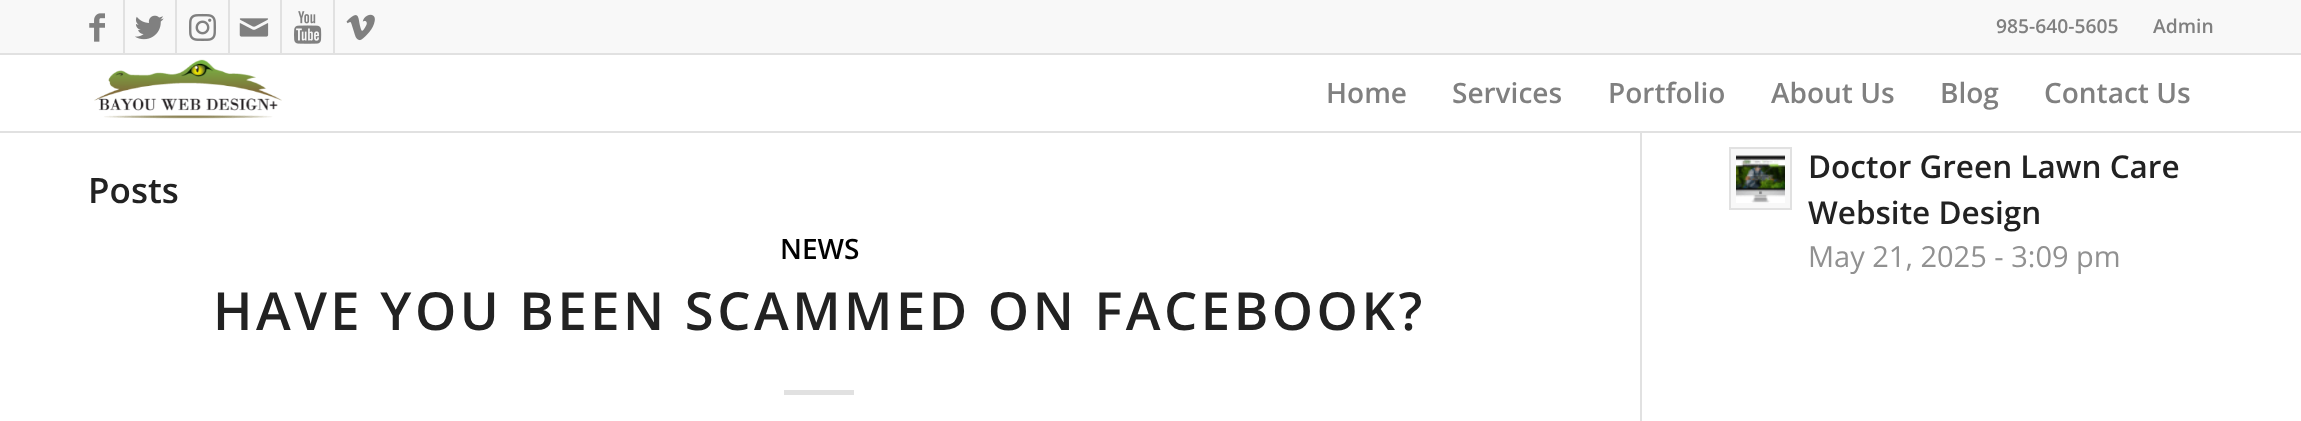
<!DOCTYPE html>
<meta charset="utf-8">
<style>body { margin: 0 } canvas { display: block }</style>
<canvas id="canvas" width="2301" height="421"></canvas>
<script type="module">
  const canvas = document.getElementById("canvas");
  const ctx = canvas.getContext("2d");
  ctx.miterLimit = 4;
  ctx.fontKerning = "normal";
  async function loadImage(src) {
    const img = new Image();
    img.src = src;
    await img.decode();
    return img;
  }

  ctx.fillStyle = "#ffffff";
  ctx.fillRect(0, 0, 2301, 421);
  ctx.fillStyle = "#f8f8f8";
  ctx.fillRect(0, 0, 2301, 53);
  ctx.fillStyle = "#e1e1e1";
  ctx.fillRect(0, 53, 2301, 2);
  ctx.fillRect(123, 0, 2, 53);
  ctx.drawImage(await loadImage("img1.png"), 89, 13, 16, 29);
  ctx.fillRect(175, 0, 2, 53);
  ctx.drawImage(await loadImage("img2.png"), 135, 15, 29, 25);
  ctx.fillRect(228, 0, 2, 53);
  ctx.drawImage(await loadImage("img3.png"), 189, 13, 27, 28);
  ctx.fillRect(280, 0, 2, 53);
  ctx.drawImage(await loadImage("img4.png"), 239, 18, 30, 19);
  ctx.fillRect(333, 0, 2, 53);
  ctx.drawImage(await loadImage("img5.png"), 294, 11, 28, 33);
  ctx.drawImage(await loadImage("img6.png"), 346, 14, 29, 27);
  ctx.font = "600 19.25px Open Sans";
  ctx.fillStyle = "#808080";
  ctx.fillText("985-640-5605", 1996, 33);
  ctx.fillText("Admin", 2153, 33);
  ctx.fillStyle = "#e1e1e1";
  ctx.fillRect(0, 131, 2301, 2);
  ctx.drawImage(await loadImage("img7.png"), 94, 59, 188, 60);
  ctx.font = "600 28px Open Sans";
  ctx.fillStyle = "#808080";
  ctx.fillText("Home", 1326, 103);
  ctx.fillText("Services", 1452, 103);
  ctx.fillText("Portfolio", 1608, 103);
  ctx.fillText("About Us", 1771, 103);
  ctx.fillText("Blog", 1940, 103);
  ctx.fillText("Contact Us", 2044, 103);
  ctx.fillStyle = "#e1e1e1";
  ctx.fillRect(1640, 133, 2, 288);
  ctx.font = "600 35px Open Sans";
  ctx.fillStyle = "#222222";
  ctx.fillText("Posts", 88, 203);
  ctx.font = "600 28px Open Sans";
  ctx.fillStyle = "#000000";
  ctx.fillText("NEWS", 780, 259);
  ctx.letterSpacing = "3.5px";
  ctx.font = "600 52.5px Open Sans";
  ctx.fillStyle = "#222222";
  ctx.fillText("HAVE YOU BEEN SCAMMED ON FACEBOOK?", 213, 330);
  ctx.fillStyle = "#e1e1e1";
  ctx.fillRect(784, 390, 70, 5);
  ctx.fillStyle = "#f8f8f8";
  ctx.beginPath();
  ctx.rect(1730, 148, 61, 61);
  ctx.fill();
  ctx.strokeStyle = "#e1e1e1";
  ctx.lineWidth = 2;
  ctx.stroke();
  ctx.drawImage(await loadImage("img8.png"), 1736, 155, 49, 48);
  ctx.letterSpacing = "0px";
  ctx.font = "600 31.5px Open Sans";
  ctx.fillStyle = "#222222";
  ctx.fillText("Doctor Green Lawn Care", 1808, 178);
  ctx.fillText("Website Design", 1808, 224);
  ctx.font = "29px Open Sans";
  ctx.fillStyle = "#919191";
  ctx.fillText("May 21, 2025 - 3:09 pm", 1808, 267);
</script>
